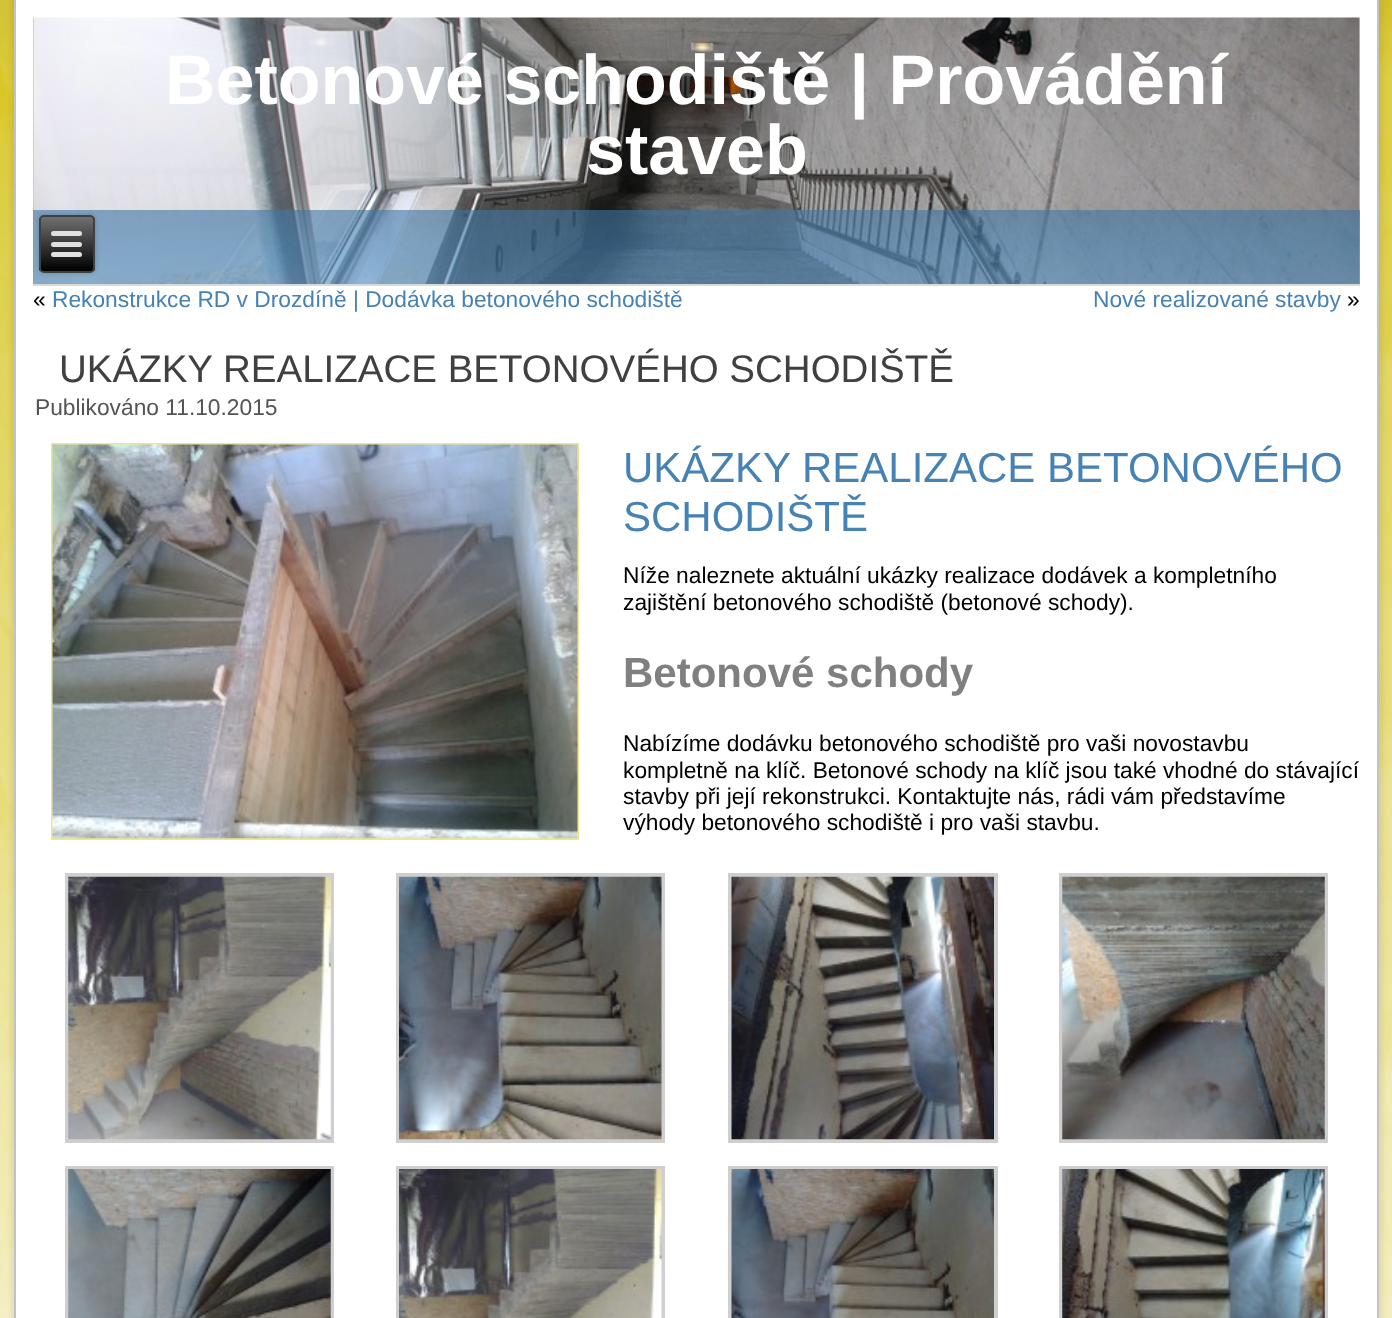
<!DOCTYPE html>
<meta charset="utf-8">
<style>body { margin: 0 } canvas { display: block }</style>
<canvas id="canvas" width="1392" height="1318"></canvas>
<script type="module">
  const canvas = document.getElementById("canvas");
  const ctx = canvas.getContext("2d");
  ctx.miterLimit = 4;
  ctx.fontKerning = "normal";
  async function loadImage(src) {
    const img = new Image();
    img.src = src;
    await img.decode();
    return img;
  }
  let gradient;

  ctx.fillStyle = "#ffffff";
  ctx.fillRect(0, 0, 1392, 1318);
  ctx.drawImage(await loadImage("img1.png"), 0, 0, 1392, 1318);
  ctx.fillStyle = "rgba(0, 0, 0, 0.07)";
  ctx.filter = "blur(2.5px)";
  ctx.beginPath();
  ctx.rect(11, -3, 1372, 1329);
  ctx.fill();
  ctx.filter = "none";
  ctx.fillStyle = "#ffffff";
  ctx.fillRect(16, 0, 1361, 1318);
  ctx.fillStyle = "#c2c2c2";
  ctx.fillRect(1377, 0, 2, 1318);
  ctx.fillRect(14, 0, 2, 1318);
  ctx.drawImage(await loadImage("img2.png"), 33, 17, 1327, 267);
  ctx.font = "bold 70px Liberation Sans";
  ctx.fillStyle = "#ffffff";
  ctx.fillText("Betonové schodiště | Provádění", 165, 104);
  ctx.fillText("staveb", 586, 174);
  gradient = ctx.createLinearGradient(697, 210, 697, 285);
  gradient.addColorStop(0, "rgba(63, 117, 162, 0.6)");
  gradient.addColorStop(0.6, "rgba(71, 133, 184, 0.6)");
  gradient.addColorStop(1, "rgba(86, 143, 189, 0.6)");
  ctx.fillStyle = gradient;
  ctx.fillRect(33, 210, 1327, 74);
  ctx.fillStyle = "#d9d9d9";
  ctx.fillRect(33, 284, 1327, 2);
  ctx.fillStyle = "rgba(0, 0, 0, 0.2)";
  ctx.filter = "blur(2.5px)";
  ctx.beginPath();
  ctx.roundRect(39, 215, 56, 58, 5);
  ctx.fill();
  ctx.filter = "none";
  ctx.save();
  ctx.beginPath();
  ctx.roundRect(39, 215, 56, 58, 5);
  ctx.clip();
  gradient = ctx.createLinearGradient(67, 217, 67, 271);
  gradient.addColorStop(0, "#707070");
  gradient.addColorStop(1, "#000000");
  ctx.fillStyle = gradient;
  ctx.fillRect(39, 217, 56, 54);
  ctx.restore();
  ctx.beginPath();
  ctx.roundRect(40, 216, 54, 56, 4);
  ctx.strokeStyle = "#404040";
  ctx.lineWidth = 2;
  ctx.stroke();
  ctx.fillStyle = "#e0e0e0";
  ctx.beginPath();
  ctx.roundRect(51, 231, 31, 5, 2.5);
  ctx.fill();
  ctx.beginPath();
  ctx.roundRect(51, 242, 31, 5, 2.5);
  ctx.fill();
  ctx.beginPath();
  ctx.roundRect(51, 252, 31, 5, 2.5);
  ctx.fill();
  ctx.font = "22.75px Liberation Sans";
  ctx.fillStyle = "#000000";
  ctx.fillText("«", 33, 307);
  ctx.fillStyle = "#4682b4";
  ctx.fillText("Rekonstrukce RD v Drozdíně | Dodávka betonového schodiště", 52, 307);
  ctx.fillText("Nové realizované stavby", 1093, 307);
  ctx.fillStyle = "#000000";
  ctx.fillText("»", 1347, 307);
  ctx.font = "38.5px Liberation Sans";
  ctx.fillStyle = "#404040";
  ctx.fillText("UKÁZKY REALIZACE BETONOVÉHO SCHODIŠTĚ", 59, 382);
  ctx.font = "22.75px Liberation Sans";
  ctx.fillStyle = "#545454";
  ctx.fillText("Publikováno 11.10.2015", 35, 415);
  ctx.strokeStyle = "#f0e68c";
  ctx.strokeRect(52, 444, 526, 395);
  ctx.drawImage(await loadImage("img3.png"), 52, 444, 526, 395);
  ctx.font = "42px Liberation Sans";
  ctx.fillStyle = "#4682b4";
  ctx.fillText("UKÁZKY REALIZACE BETONOVÉHO", 623, 482);
  ctx.fillText("SCHODIŠTĚ", 623, 531);
  ctx.font = "22.75px Liberation Sans";
  ctx.fillStyle = "#000000";
  ctx.fillText("Níže naleznete aktuální ukázky realizace dodávek a kompletního", 623, 583);
  ctx.fillText("zajištění betonového schodiště (betonové schody).", 623, 610);
  ctx.font = "bold 42px Liberation Sans";
  ctx.fillStyle = "#808080";
  ctx.fillText("Betonové schody", 623, 687);
  ctx.font = "22.75px Liberation Sans";
  ctx.fillStyle = "#000000";
  ctx.fillText("Nabízíme dodávku betonového schodiště pro vaši novostavbu", 623, 751);
  ctx.fillText("kompletně na klíč. Betonové schody na klíč jsou také vhodné do stávající", 623, 778);
  ctx.fillText("stavby při její rekonstrukci. Kontaktujte nás, rádi vám představíme", 623, 804);
  ctx.fillText("výhody betonového schodiště i pro vaši stavbu.", 623, 830);
  ctx.strokeStyle = "#cfcfcf";
  ctx.lineWidth = 4;
  ctx.strokeRect(67, 875, 265, 266);
  ctx.drawImage(await loadImage("img4.png"), 68, 876, 263, 264);
  ctx.strokeRect(398, 875, 265, 266);
  ctx.drawImage(await loadImage("img5.png"), 399, 876, 263, 264);
  ctx.strokeRect(730, 875, 266, 266);
  ctx.drawImage(await loadImage("img6.png"), 731, 876, 263, 264);
  ctx.strokeRect(1061, 875, 265, 266);
  ctx.drawImage(await loadImage("img7.png"), 1062, 876, 263, 264);
  ctx.strokeRect(67, 1168, 265, 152);
  ctx.drawImage(await loadImage("img8.png"), 68, 1169, 263, 149);
  ctx.strokeRect(398, 1168, 265, 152);
  ctx.drawImage(await loadImage("img9.png"), 399, 1169, 263, 149);
  ctx.strokeRect(730, 1168, 266, 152);
  ctx.drawImage(await loadImage("img10.png"), 731, 1169, 263, 149);
  ctx.strokeRect(1061, 1168, 265, 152);
  ctx.drawImage(await loadImage("img11.png"), 1062, 1169, 263, 149);
</script>
